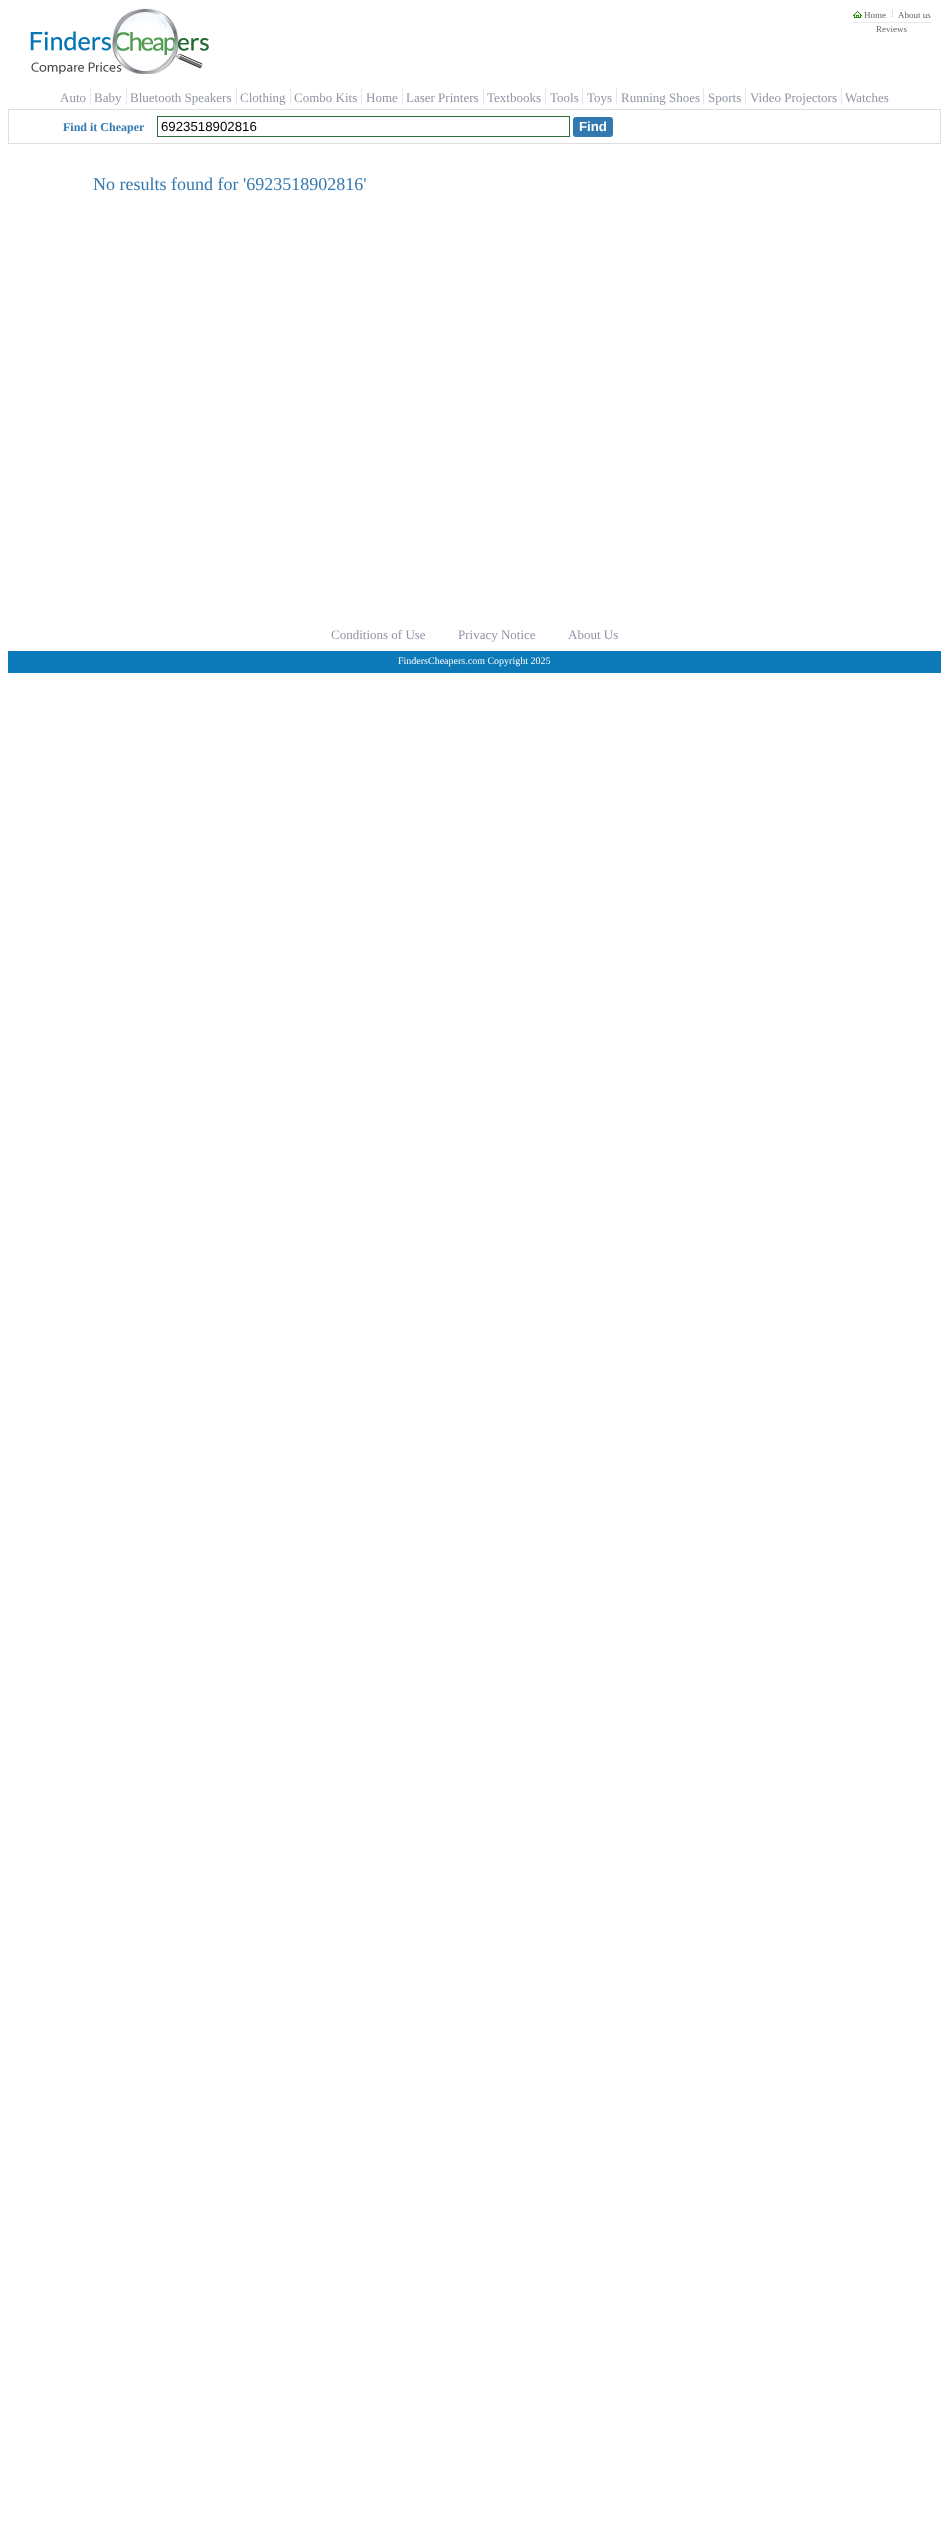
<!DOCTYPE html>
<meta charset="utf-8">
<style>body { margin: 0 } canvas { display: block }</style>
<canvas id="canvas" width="949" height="2531"></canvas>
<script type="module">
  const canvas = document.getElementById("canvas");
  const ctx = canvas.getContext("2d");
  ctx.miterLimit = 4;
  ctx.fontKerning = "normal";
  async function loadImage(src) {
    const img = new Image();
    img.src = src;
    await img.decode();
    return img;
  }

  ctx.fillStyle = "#ffffff";
  ctx.fillRect(0, 0, 949, 2531);
  ctx.drawImage(await loadImage("img1.png"), 30, 8, 179, 66);
  ctx.drawImage(await loadImage("img2.png"), 853, 11, 9, 7);
  ctx.font = "9px Liberation Serif";
  ctx.fillStyle = "#666666";
  ctx.fillText("Home", 864, 18);
  ctx.drawImage(await loadImage("img3.png"), 892, 10, 1, 7);
  ctx.fillText("About us", 898, 18);
  ctx.fillStyle = "#ebebeb";
  ctx.fillRect(853, 22, 78, 1);
  ctx.fillStyle = "#666666";
  ctx.fillText("Reviews", 876, 32);
  ctx.font = "13px Liberation Serif";
  ctx.fillStyle = "#9195a5";
  ctx.fillText("Auto", 60, 102);
  ctx.fillStyle = "#e6e7eb";
  ctx.fillRect(90, 88, 1, 17);
  ctx.fillStyle = "#9195a5";
  ctx.fillText("Baby", 94, 102);
  ctx.fillStyle = "#e6e7eb";
  ctx.fillRect(126, 88, 1, 17);
  ctx.fillStyle = "#9195a5";
  ctx.fillText("Bluetooth Speakers", 130, 102);
  ctx.fillStyle = "#e6e7eb";
  ctx.fillRect(236, 88, 1, 17);
  ctx.fillStyle = "#9195a5";
  ctx.fillText("Clothing", 240, 102);
  ctx.fillStyle = "#e6e7eb";
  ctx.fillRect(290, 88, 1, 17);
  ctx.fillStyle = "#9195a5";
  ctx.fillText("Combo Kits", 294, 102);
  ctx.fillStyle = "#e6e7eb";
  ctx.fillRect(361, 88, 1, 17);
  ctx.fillStyle = "#9195a5";
  ctx.fillText("Home", 366, 102);
  ctx.fillStyle = "#e6e7eb";
  ctx.fillRect(402, 88, 1, 17);
  ctx.fillStyle = "#9195a5";
  ctx.fillText("Laser Printers", 406, 102);
  ctx.fillStyle = "#e6e7eb";
  ctx.fillRect(483, 88, 1, 17);
  ctx.fillStyle = "#9195a5";
  ctx.fillText("Textbooks", 487, 102);
  ctx.fillStyle = "#e6e7eb";
  ctx.fillRect(545, 88, 1, 17);
  ctx.fillStyle = "#9195a5";
  ctx.fillText("Tools", 550, 102);
  ctx.fillStyle = "#e6e7eb";
  ctx.fillRect(582, 88, 1, 17);
  ctx.fillStyle = "#9195a5";
  ctx.fillText("Toys", 587, 102);
  ctx.fillStyle = "#e6e7eb";
  ctx.fillRect(616, 88, 1, 17);
  ctx.fillStyle = "#9195a5";
  ctx.fillText("Running Shoes", 621, 102);
  ctx.fillStyle = "#e6e7eb";
  ctx.fillRect(703, 88, 1, 17);
  ctx.fillStyle = "#9195a5";
  ctx.fillText("Sports", 708, 102);
  ctx.fillStyle = "#e6e7eb";
  ctx.fillRect(745, 88, 1, 17);
  ctx.fillStyle = "#9195a5";
  ctx.fillText("Video Projectors", 750, 102);
  ctx.fillStyle = "#e6e7eb";
  ctx.fillRect(841, 88, 1, 17);
  ctx.fillStyle = "#9195a5";
  ctx.fillText("Watches", 845, 102);
  ctx.strokeStyle = "#dedede";
  ctx.strokeRect(8.5, 109.5, 932, 34);
  ctx.font = "bold 12px Liberation Serif";
  ctx.fillStyle = "#3379b1";
  ctx.fillText("Find it Cheaper", 63, 131);
  ctx.strokeStyle = "#2a6f3c";
  ctx.strokeRect(157.5, 116.5, 412, 20);
  ctx.font = "13.25px Liberation Sans";
  ctx.fillStyle = "#000000";
  ctx.fillText("6923518902816", 161, 131);
  ctx.fillStyle = "#3379b1";
  ctx.beginPath();
  ctx.roundRect(573, 117, 40, 20, 3);
  ctx.fill();
  ctx.font = "bold 13.25px Liberation Sans";
  ctx.fillStyle = "#ffffff";
  ctx.fillText("Find", 579, 131);
  ctx.font = "18px Liberation Serif";
  ctx.fillStyle = "#3379b1";
  ctx.fillText("No results found for '6923518902816'", 93, 190);
  ctx.font = "13px Liberation Serif";
  ctx.fillStyle = "#9195a5";
  ctx.fillText("Conditions of Use", 331, 639);
  ctx.fillText("Privacy Notice", 458, 639);
  ctx.fillText("About Us", 568, 639);
  ctx.fillStyle = "#0c79b8";
  ctx.fillRect(8, 651, 933, 22);
  ctx.font = "10px Liberation Serif";
  ctx.fillStyle = "#ffffff";
  ctx.fillText("FindersCheapers.com Copyright 2025", 398, 664);
</script>
